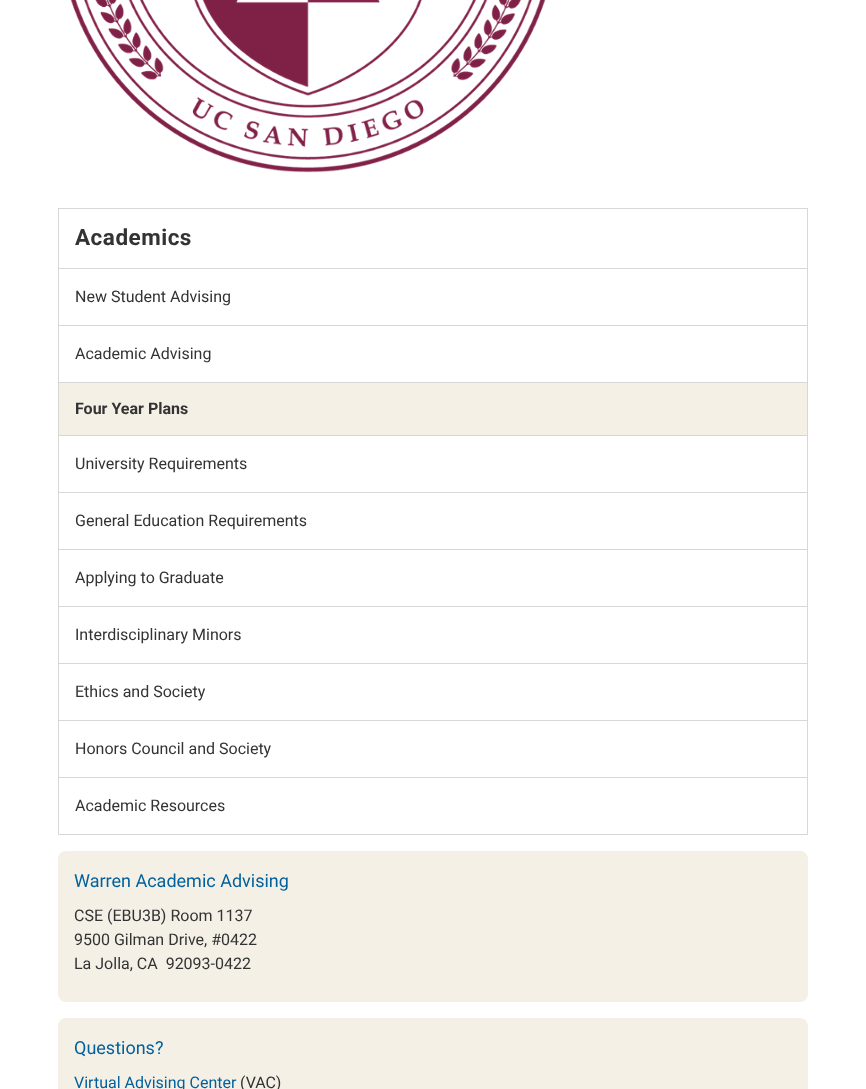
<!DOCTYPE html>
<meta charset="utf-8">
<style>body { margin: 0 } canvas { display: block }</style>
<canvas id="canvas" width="866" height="1089"></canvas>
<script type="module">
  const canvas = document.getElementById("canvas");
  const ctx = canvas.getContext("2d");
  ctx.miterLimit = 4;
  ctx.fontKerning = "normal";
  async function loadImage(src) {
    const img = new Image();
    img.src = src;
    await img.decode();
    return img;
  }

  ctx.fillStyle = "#ffffff";
  ctx.fillRect(0, 0, 866, 1089);
  ctx.drawImage(await loadImage("img1.png"), 70, 0, 476, 173);
  ctx.strokeStyle = "#d8d7d7";
  ctx.strokeRect(58.5, 208.5, 749, 626);
  ctx.letterSpacing = "0.5px";
  ctx.font = "bold 22.5px Roboto";
  ctx.fillStyle = "#333333";
  ctx.fillText("Academics", 75, 245);
  ctx.fillStyle = "#d8d7d7";
  ctx.fillRect(59, 268, 748, 1);
  ctx.letterSpacing = "0px";
  ctx.font = "16px Roboto";
  ctx.fillStyle = "#333333";
  ctx.fillText("New Student Advising", 75, 302);
  ctx.fillStyle = "#d8d7d7";
  ctx.fillRect(59, 325, 748, 1);
  ctx.fillStyle = "#333333";
  ctx.fillText("Academic Advising", 75, 359);
  ctx.fillStyle = "#f5f0e6";
  ctx.fillRect(59, 383, 748, 52);
  ctx.fillStyle = "#d8d7d7";
  ctx.fillRect(59, 382, 748, 1);
  ctx.font = "bold 16px Roboto";
  ctx.fillStyle = "#333333";
  ctx.fillText("Four Year Plans", 75, 414);
  ctx.fillStyle = "#d8d7d7";
  ctx.fillRect(59, 435, 748, 1);
  ctx.font = "16px Roboto";
  ctx.fillStyle = "#333333";
  ctx.fillText("University Requirements", 75, 469);
  ctx.fillStyle = "#d8d7d7";
  ctx.fillRect(59, 492, 748, 1);
  ctx.fillStyle = "#333333";
  ctx.fillText("General Education Requirements", 75, 526);
  ctx.fillStyle = "#d8d7d7";
  ctx.fillRect(59, 549, 748, 1);
  ctx.fillStyle = "#333333";
  ctx.fillText("Applying to Graduate", 75, 583);
  ctx.fillStyle = "#d8d7d7";
  ctx.fillRect(59, 606, 748, 1);
  ctx.fillStyle = "#333333";
  ctx.fillText("Interdisciplinary Minors", 75, 640);
  ctx.fillStyle = "#d8d7d7";
  ctx.fillRect(59, 663, 748, 1);
  ctx.fillStyle = "#333333";
  ctx.fillText("Ethics and Society", 75, 697);
  ctx.fillStyle = "#d8d7d7";
  ctx.fillRect(59, 720, 748, 1);
  ctx.fillStyle = "#333333";
  ctx.fillText("Honors Council and Society", 75, 754);
  ctx.fillStyle = "#d8d7d7";
  ctx.fillRect(59, 777, 748, 1);
  ctx.fillStyle = "#333333";
  ctx.fillText("Academic Resources", 75, 811);
  ctx.fillStyle = "#f5f0e6";
  ctx.beginPath();
  ctx.roundRect(58, 851, 750, 151, 8);
  ctx.fill();
  ctx.font = "18px Roboto";
  ctx.fillStyle = "#02619c";
  ctx.fillText("Warren Academic Advising", 74, 887);
  ctx.font = "16px Roboto";
  ctx.fillStyle = "#333333";
  ctx.fillText("CSE (EBU3B) Room 1137", 74, 921);
  ctx.fillText("9500 Gilman Drive, #0422", 74, 945);
  ctx.fillText("La Jolla, CA  92093-0422", 74, 969);
  ctx.fillStyle = "#f5f0e6";
  ctx.beginPath();
  ctx.roundRect(58, 1018, 750, 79, 8);
  ctx.fill();
  ctx.font = "18px Roboto";
  ctx.fillStyle = "#02619c";
  ctx.fillText("Questions?", 74, 1054);
  ctx.font = "16px Roboto";
  ctx.fillText("Virtual Advising Center", 74, 1088);
  ctx.fillStyle = "#333333";
  ctx.fillText("(VAC)", 240, 1088);
</script>
